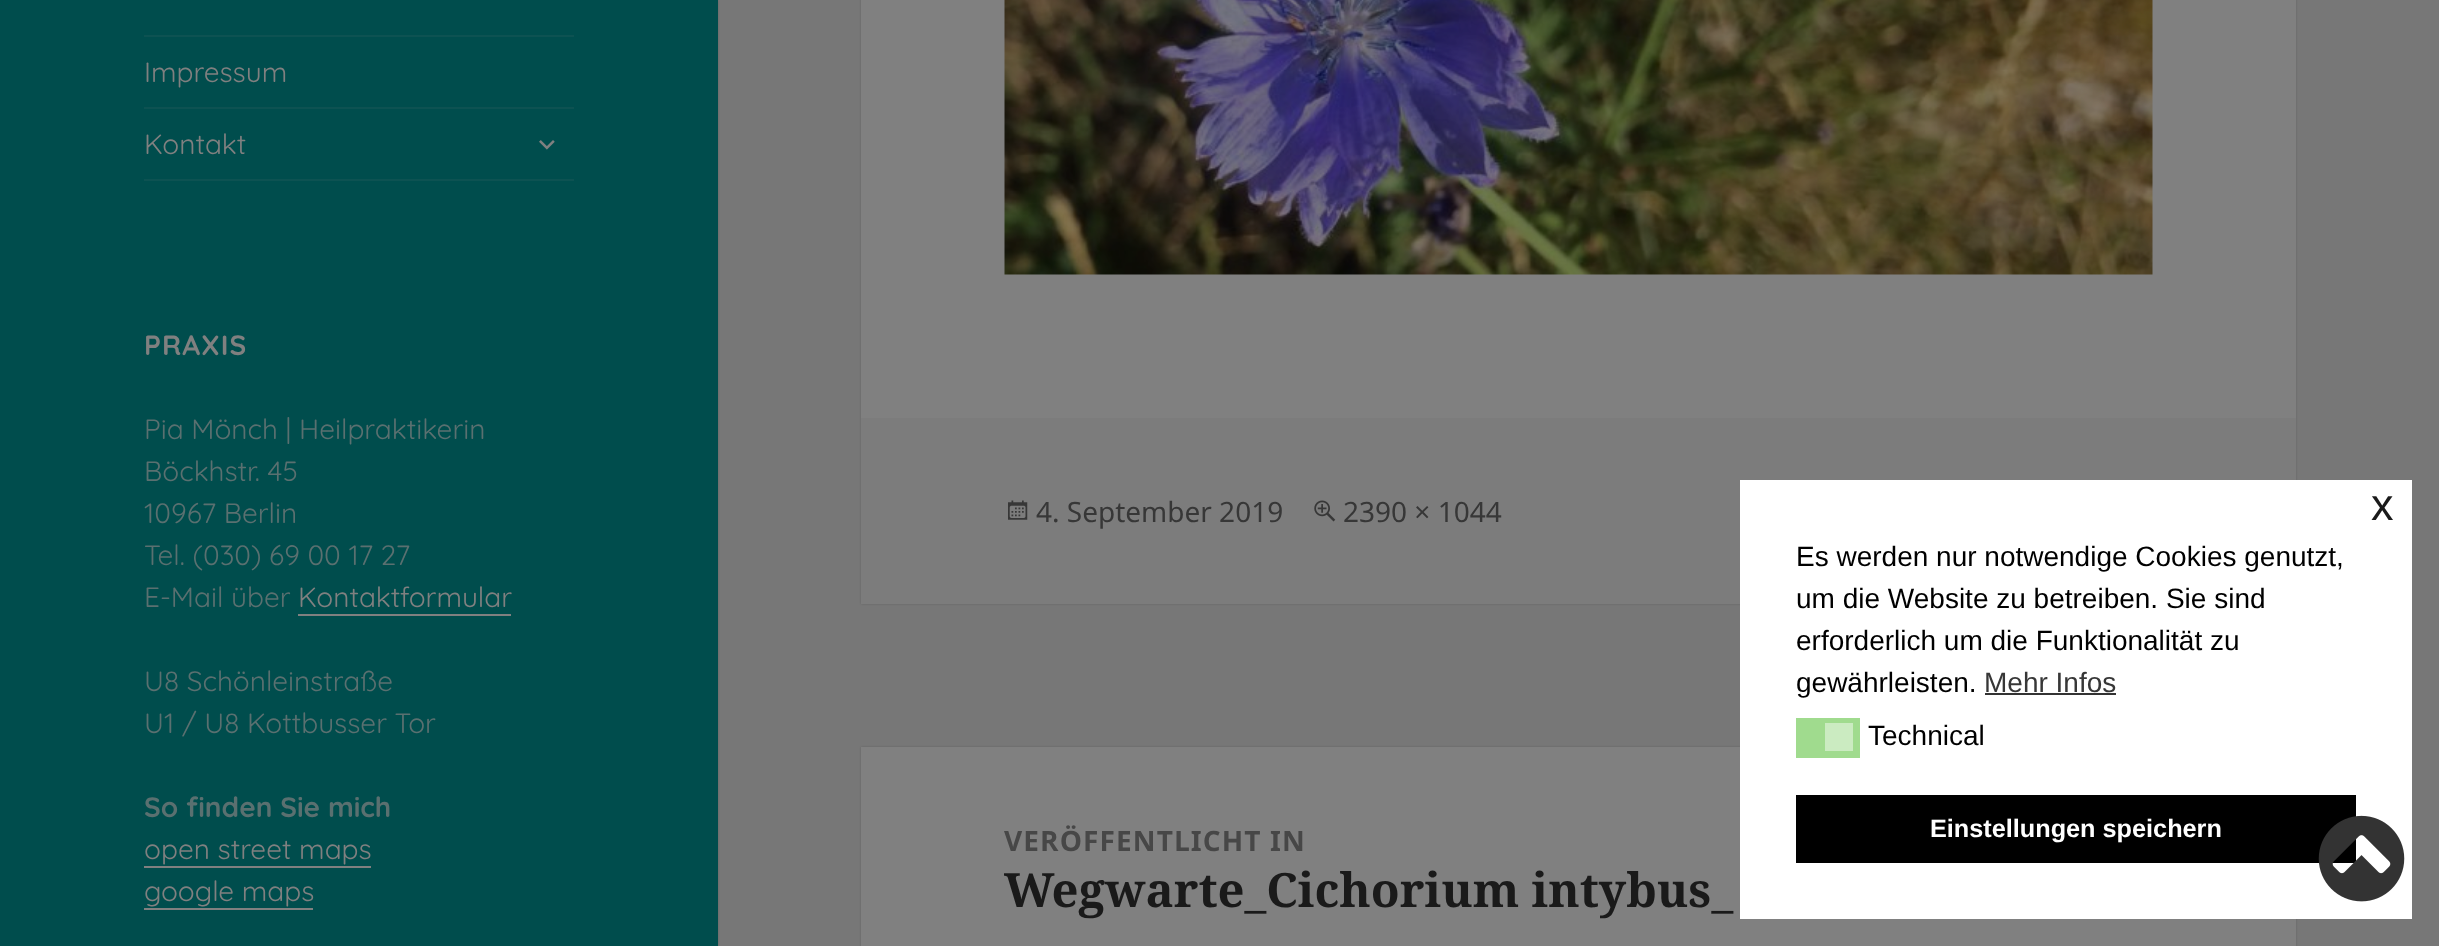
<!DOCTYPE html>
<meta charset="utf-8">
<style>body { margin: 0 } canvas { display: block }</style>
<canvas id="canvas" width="2439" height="946"></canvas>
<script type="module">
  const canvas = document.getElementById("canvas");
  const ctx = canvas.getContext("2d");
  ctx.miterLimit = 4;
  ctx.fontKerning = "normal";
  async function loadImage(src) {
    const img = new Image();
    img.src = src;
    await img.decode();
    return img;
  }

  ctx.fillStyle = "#777777";
  ctx.fillRect(0, 0, 2439, 946);
  ctx.fillStyle = "rgba(0, 0, 0, 0.15)";
  ctx.filter = "blur(1px)";
  ctx.beginPath();
  ctx.rect(0, 0, 718, 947);
  ctx.fill();
  ctx.filter = "none";
  ctx.fillStyle = "#004d4d";
  ctx.fillRect(0, 0, 718, 946);
  ctx.fillStyle = "#0d5252";
  ctx.fillRect(144, 179, 430, 2);
  ctx.fillRect(144, 35, 430, 2);
  ctx.font = "28px Quicksand";
  ctx.fillStyle = "#808080";
  ctx.fillText("Impressum", 144, 82);
  ctx.fillStyle = "#0d5252";
  ctx.fillRect(144, 107, 430, 2);
  ctx.fillStyle = "#808080";
  ctx.fillText("Kontakt", 144, 154);
  ctx.drawImage(await loadImage("img1.png"), 539, 140, 16, 10);
  ctx.letterSpacing = "1.1px";
  ctx.font = "bold 28px Quicksand";
  ctx.fillText("PRAXIS", 144, 355);
  ctx.letterSpacing = "0px";
  ctx.font = "28px Quicksand";
  ctx.fillStyle = "#5a7070";
  ctx.fillText("Pia Mönch | Heilpraktikerin", 144, 439);
  ctx.fillText("Böckhstr. 45", 144, 481);
  ctx.fillText("10967 Berlin", 144, 523);
  ctx.fillText("Tel. (030) 69 00 17 27", 144, 565);
  ctx.fillText("E-Mail über", 144, 607);
  ctx.fillStyle = "#808080";
  ctx.fillText("Kontaktformular", 298, 607);
  ctx.fillRect(298, 614, 213, 2);
  ctx.fillStyle = "#5a7070";
  ctx.fillText("U8 Schönleinstraße", 144, 691);
  ctx.fillText("U1 / U8 Kottbusser Tor", 144, 733);
  ctx.font = "bold 28px Quicksand";
  ctx.fillText("So finden Sie mich", 144, 817);
  ctx.font = "28px Quicksand";
  ctx.fillStyle = "#808080";
  ctx.fillText("open street maps", 144, 859);
  ctx.fillRect(144, 866, 227, 2);
  ctx.fillText("google maps", 144, 901);
  ctx.fillRect(144, 908, 169, 2);
  ctx.fillStyle = "rgba(0, 0, 0, 0.15)";
  ctx.filter = "blur(1px)";
  ctx.beginPath();
  ctx.rect(861, -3, 1435, 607);
  ctx.fill();
  ctx.filter = "none";
  ctx.fillStyle = "#808080";
  ctx.fillRect(861, 0, 1435, 418);
  ctx.drawImage(await loadImage("img2.png"), 1004, 0, 1149, 275);
  ctx.fillStyle = "#7c7c7c";
  ctx.fillRect(861, 418, 1435, 186);
  ctx.drawImage(await loadImage("img3.png"), 1008, 500, 20, 20);
  ctx.font = "28px Noto Sans";
  ctx.fillStyle = "#373737";
  ctx.fillText("4. September 2019", 1036, 522);
  ctx.drawImage(await loadImage("img4.png"), 1314, 500, 22, 22);
  ctx.fillText("2390 × 1044", 1343, 522);
  ctx.fillStyle = "rgba(0, 0, 0, 0.15)";
  ctx.filter = "blur(1px)";
  ctx.beginPath();
  ctx.rect(861, 747, 1435, 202);
  ctx.fill();
  ctx.filter = "none";
  ctx.fillStyle = "#808080";
  ctx.fillRect(861, 747, 1435, 199);
  ctx.letterSpacing = "1.1px";
  ctx.font = "bold 28px Noto Sans";
  ctx.fillStyle = "#474747";
  ctx.fillText("VERÖFFENTLICHT IN", 1004, 851);
  ctx.letterSpacing = "0px";
  ctx.font = "bold 47.25px Noto Serif";
  ctx.fillStyle = "#1a1a1a";
  ctx.fillText("Wegwarte_Cichorium intybus_", 1004, 907);
  ctx.fillStyle = "#ffffff";
  ctx.fillRect(1740, 480, 672, 439);
  ctx.font = "45px Liberation Sans";
  ctx.fillStyle = "#1a1a1a";
  ctx.fillText("x", 2371, 520);
  ctx.font = "28px Liberation Sans";
  ctx.fillStyle = "#000000";
  ctx.fillText("Es werden nur notwendige Cookies genutzt,", 1796, 566);
  ctx.fillText("um die Website zu betreiben. Sie sind", 1796, 608);
  ctx.fillText("erforderlich um die Funktionalität zu", 1796, 650);
  ctx.fillText("gewährleisten.", 1796, 692);
  ctx.fillStyle = "#373737";
  ctx.fillText("Mehr Infos", 1984, 692);
  ctx.fillStyle = "#333333";
  ctx.fillRect(1985, 693, 131, 2);
  ctx.fillStyle = "#a0db8e";
  ctx.fillRect(1796, 718, 64, 40);
  ctx.fillStyle = "#cbebc1";
  ctx.fillRect(1825, 723, 28, 28);
  ctx.fillStyle = "#000000";
  ctx.fillText("Technical", 1868, 745);
  ctx.fillRect(1796, 795, 560, 68);
  ctx.font = "bold 25.25px Liberation Sans";
  ctx.fillStyle = "#ffffff";
  ctx.fillText("Einstellungen speichern", 1930, 837);
  ctx.drawImage(await loadImage("img5.png"), 2318, 815, 87, 87);
</script>
